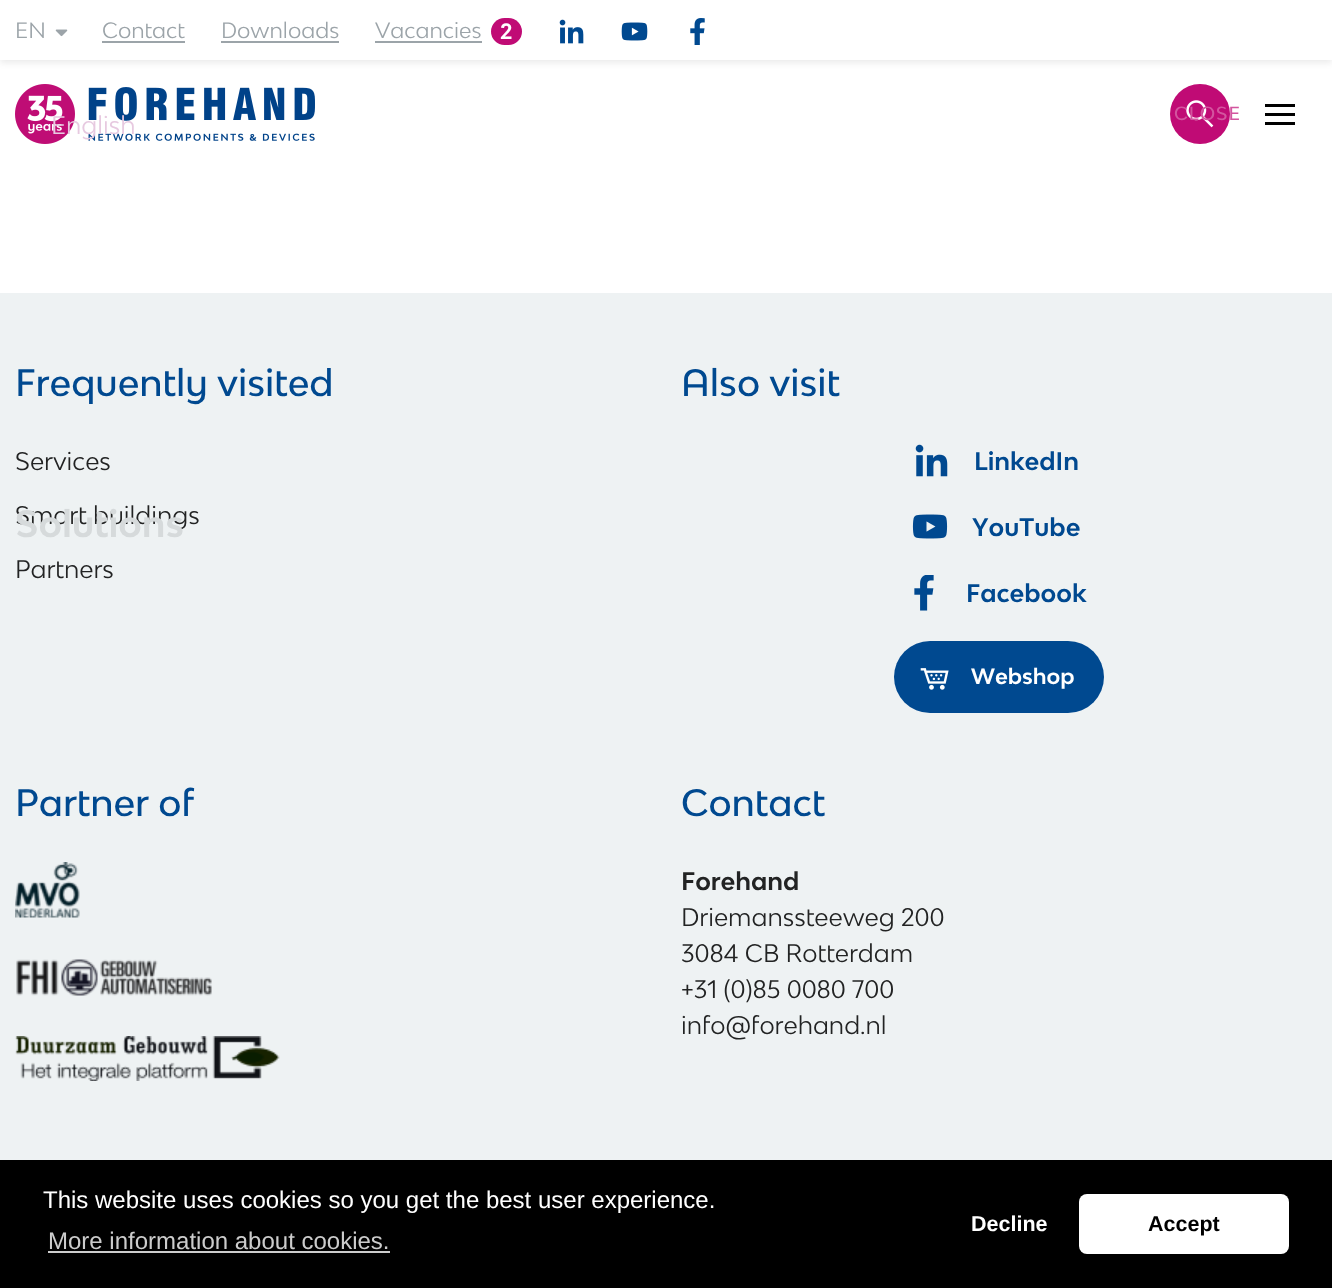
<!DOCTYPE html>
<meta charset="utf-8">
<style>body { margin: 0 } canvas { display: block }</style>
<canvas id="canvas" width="1332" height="1288"></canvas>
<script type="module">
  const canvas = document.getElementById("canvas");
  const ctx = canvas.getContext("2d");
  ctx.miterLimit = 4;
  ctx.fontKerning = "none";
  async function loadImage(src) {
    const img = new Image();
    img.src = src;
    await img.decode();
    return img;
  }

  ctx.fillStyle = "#ffffff";
  ctx.fillRect(0, 0, 1332, 1288);
  ctx.fillStyle = "rgba(0, 0, 0, 0.08)";
  ctx.filter = "blur(3px)";
  ctx.beginPath();
  ctx.rect(0, 3, 1332, 60);
  ctx.fill();
  ctx.filter = "none";
  ctx.fillStyle = "#ffffff";
  ctx.fillRect(0, 0, 1332, 60);
  ctx.font = "21px 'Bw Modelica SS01'";
  ctx.fillStyle = "#9ca4a9";
  ctx.fillText("EN", 15, 38);
  ctx.drawImage(await loadImage("img1.png"), 55, 29, 13, 8);
  ctx.drawImage(await loadImage("img5.png"), 15, 84, 300, 60);
  ctx.font = "24px 'Bw Modelica SS01'";
  ctx.fillStyle = "#e7c9e0";
  ctx.fillText("English", 51, 134);
  ctx.font = "21px 'Bw Modelica SS01'";
  ctx.fillStyle = "#9ca4a9";
  ctx.fillText("Contact", 102, 38);
  ctx.fillRect(102, 41, 83, 2);
  ctx.fillText("Downloads", 221, 38);
  ctx.fillRect(221, 41, 118, 2);
  ctx.fillText("Vacancies", 375, 38);
  ctx.fillRect(375, 41, 107, 2);
  ctx.fillStyle = "#c00b75";
  ctx.beginPath();
  ctx.roundRect(491, 18, 31, 27, 13.5);
  ctx.fill();
  ctx.font = "bold 21px 'Bw Modelica SS01'";
  ctx.fillStyle = "#ffffff";
  ctx.fillText("2", 500, 39);
  ctx.drawImage(await loadImage("img2.png"), 559, 19, 25, 25);
  ctx.drawImage(await loadImage("img3.png"), 621, 22, 27, 19);
  ctx.drawImage(await loadImage("img4.png"), 690, 18, 15, 27);
  ctx.fillStyle = "#c00b75";
  ctx.beginPath();
  ctx.arc(1200, 114, 30, 0, Math.PI * 2);
  ctx.fill();
  ctx.drawImage(await loadImage("img6.png"), 1186, 100, 28, 28);
  ctx.fillStyle = "#000000";
  ctx.fillRect(1265, 113, 30, 3);
  ctx.fillRect(1265, 104, 30, 3);
  ctx.fillRect(1265, 122, 30, 3);
  ctx.letterSpacing = "1px";
  ctx.font = "500 18px 'Bw Modelica SS01'";
  ctx.fillStyle = "#d3559f";
  ctx.fillText("CLOSE", 1174, 120);
  ctx.fillStyle = "#eef2f3";
  ctx.fillRect(0, 293, 1332, 867);
  ctx.letterSpacing = "0px";
  ctx.font = "24px 'Bw Modelica SS01'";
  ctx.fillStyle = "#222323";
  ctx.fillText("Smart buildings", 15, 524);
  ctx.font = "bold 36px 'Bw Modelica SS01'";
  ctx.fillStyle = "#d6dadb";
  ctx.fillText("Solutions", 15, 537);
  ctx.font = "500 36px 'Bw Modelica SS01'";
  ctx.fillStyle = "#004990";
  ctx.fillText("Frequently visited", 15, 396);
  ctx.font = "24px 'Bw Modelica SS01'";
  ctx.fillStyle = "#222323";
  ctx.fillText("Services", 15, 470);
  ctx.fillText("Partners", 15, 578);
  ctx.font = "500 36px 'Bw Modelica SS01'";
  ctx.fillStyle = "#004990";
  ctx.fillText("Also visit", 681, 396);
  ctx.drawImage(await loadImage("img7.png"), 915, 444, 33, 33);
  ctx.font = "bold 24px 'Bw Modelica SS01'";
  ctx.fillText("LinkedIn", 974, 470);
  ctx.drawImage(await loadImage("img8.png"), 912, 514, 36, 25);
  ctx.fillText("YouTube", 972, 536);
  ctx.drawImage(await loadImage("img9.png"), 914, 575, 20, 36);
  ctx.fillText("Facebook", 966, 602);
  ctx.beginPath();
  ctx.roundRect(894, 641, 210, 72, 36);
  ctx.fill();
  ctx.drawImage(await loadImage("img10.png"), 920, 668, 29, 22);
  ctx.font = "bold 21px 'Bw Modelica SS01'";
  ctx.fillStyle = "#ffffff";
  ctx.fillText("Webshop", 971, 684);
  ctx.font = "500 36px 'Bw Modelica SS01'";
  ctx.fillStyle = "#004990";
  ctx.fillText("Partner of", 15, 816);
  ctx.drawImage(await loadImage("img11.png"), 15, 862, 65, 56);
  ctx.drawImage(await loadImage("img12.png"), 16, 959, 196, 37);
  ctx.drawImage(await loadImage("img13.png"), 15, 1036, 265, 45);
  ctx.fillText("Contact", 681, 816);
  ctx.font = "bold 24px 'Bw Modelica SS01'";
  ctx.fillStyle = "#222323";
  ctx.fillText("Forehand", 681, 890);
  ctx.font = "24px 'Bw Modelica SS01'";
  ctx.fillText("Driemanssteeweg 200", 681, 926);
  ctx.fillText("3084 CB Rotterdam", 681, 962);
  ctx.fillText("+31 (0)85 0080 700", 681, 998);
  ctx.fillText("info@forehand.nl", 681, 1034);
  ctx.fillStyle = "#000000";
  ctx.fillRect(0, 1160, 1332, 128);
  ctx.font = "24px Liberation Sans";
  ctx.fillStyle = "#ffffff";
  ctx.fillText("This website uses cookies so you get the best user experience.", 43, 1208);
  ctx.fillStyle = "#cccccc";
  ctx.fillText("More information about cookies.", 48, 1249);
  ctx.fillRect(48, 1251, 342, 2);
  ctx.font = "bold 21.5px Liberation Sans";
  ctx.fillStyle = "#ffffff";
  ctx.fillText("Decline", 971, 1231);
  ctx.beginPath();
  ctx.roundRect(1079, 1194, 210, 60, 8);
  ctx.fill();
  ctx.fillStyle = "#000000";
  ctx.fillText("Accept", 1148, 1231);
</script>
